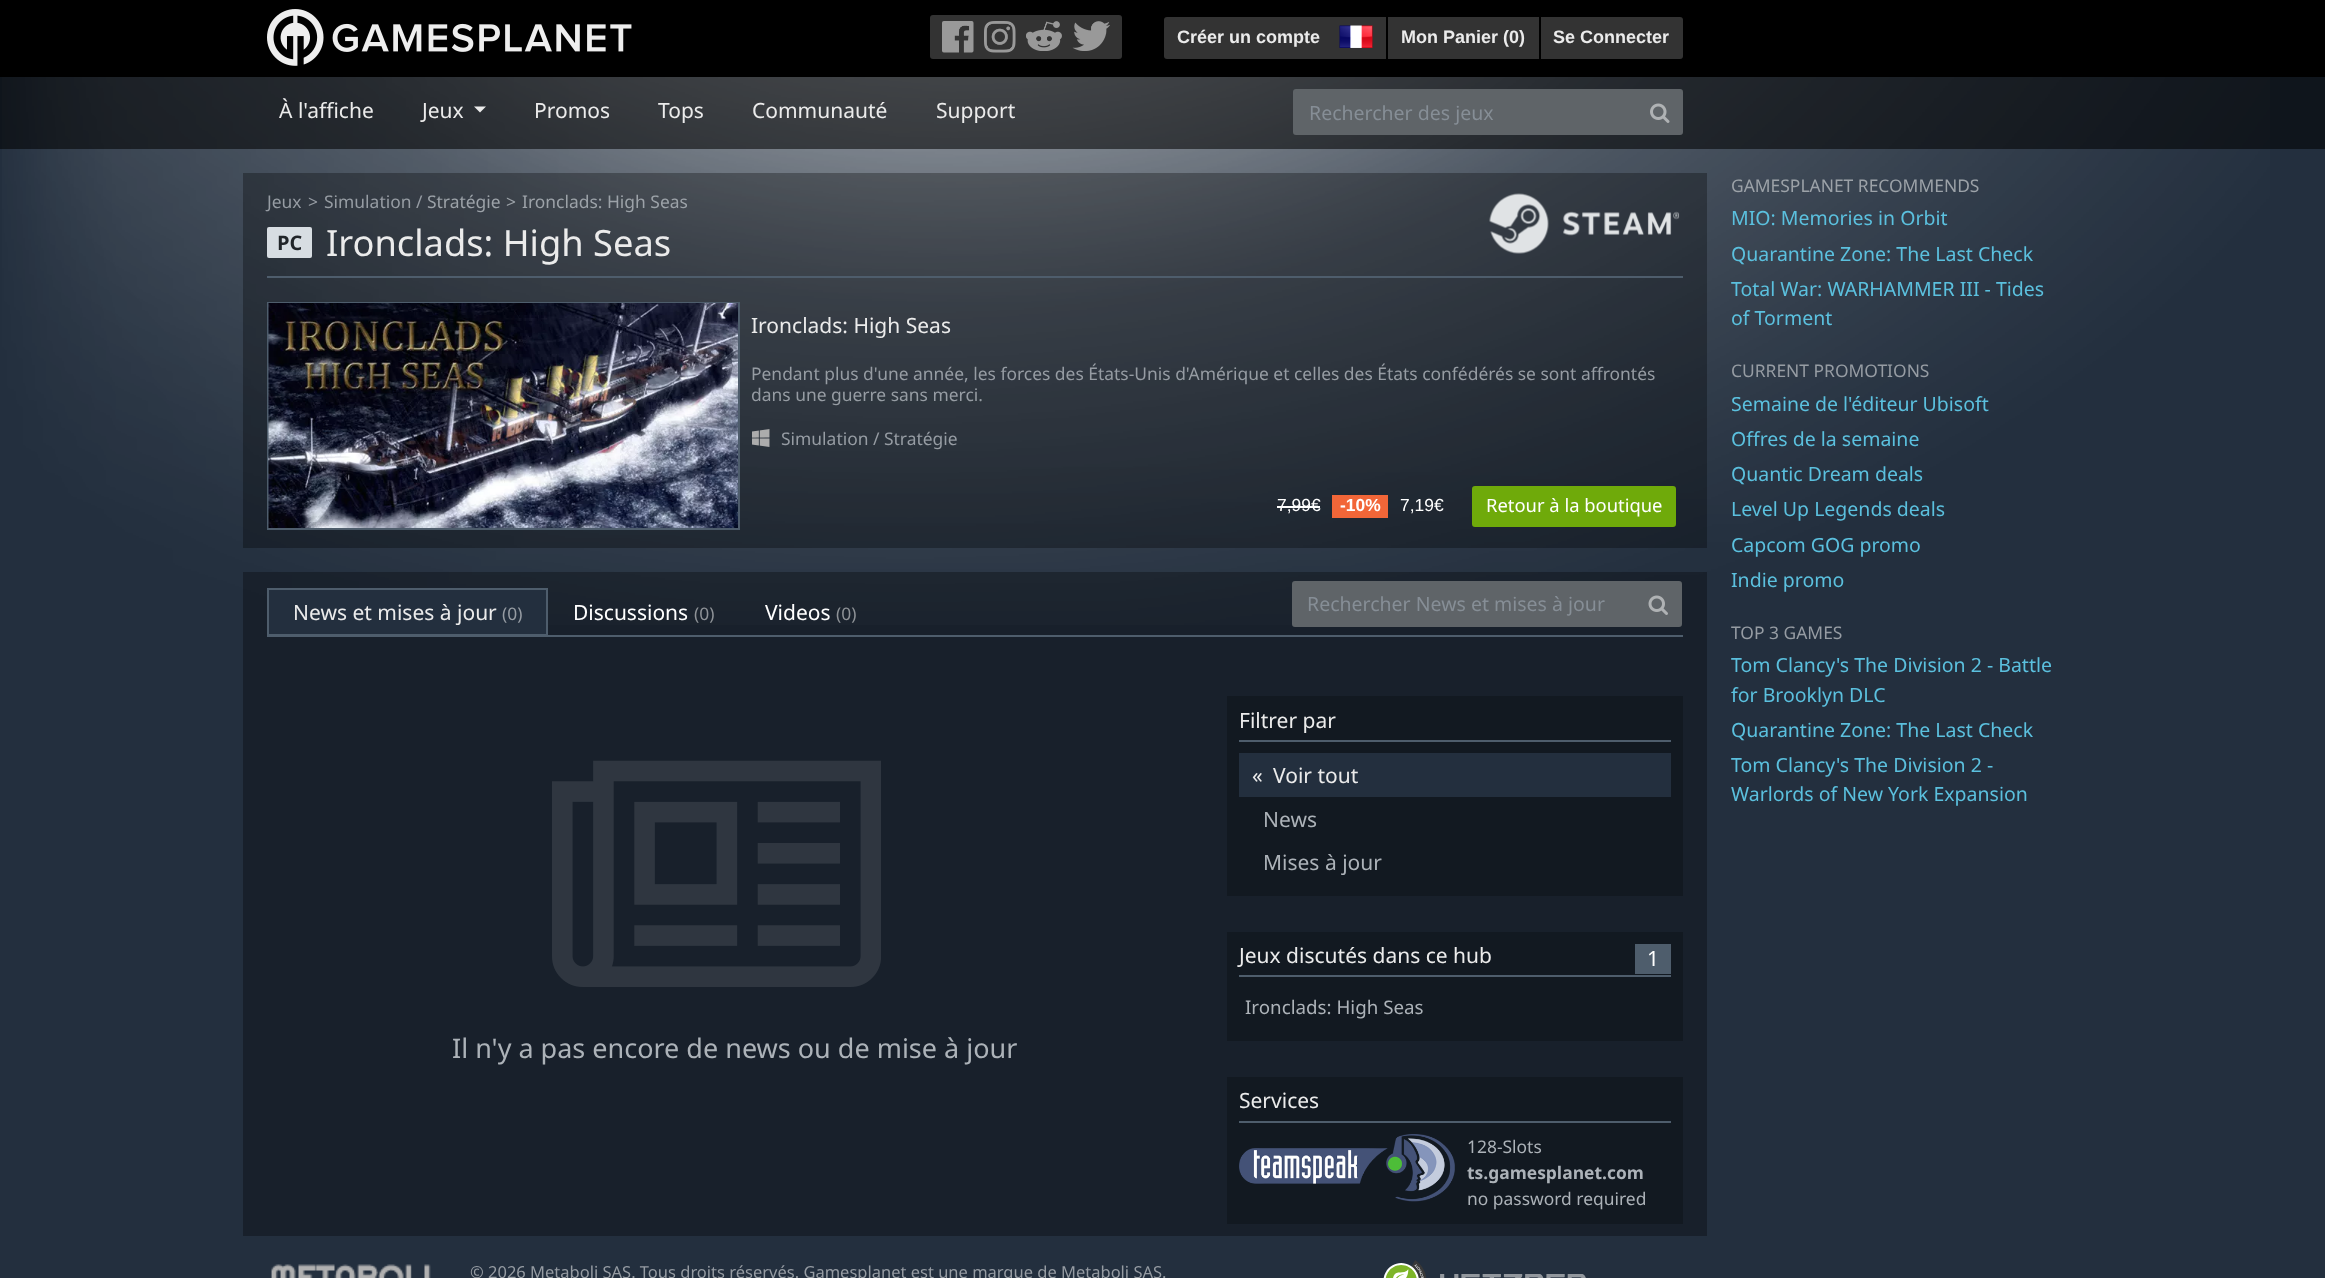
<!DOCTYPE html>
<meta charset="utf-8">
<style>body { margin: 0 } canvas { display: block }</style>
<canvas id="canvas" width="2325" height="1278"></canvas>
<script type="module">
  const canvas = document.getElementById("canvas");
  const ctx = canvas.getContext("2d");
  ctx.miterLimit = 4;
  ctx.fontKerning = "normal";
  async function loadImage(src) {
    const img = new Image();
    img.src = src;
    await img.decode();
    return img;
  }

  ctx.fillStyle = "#232f3e";
  ctx.fillRect(0, 0, 2325, 1278);
  ctx.drawImage(await loadImage("img1.png"), 2, 77, 2268, 548);
  ctx.fillStyle = "#000000";
  ctx.fillRect(0, 0, 2325, 77);
  ctx.drawImage(await loadImage("img2.png"), 267, 9, 365, 57);
  ctx.fillStyle = "#333333";
  ctx.beginPath();
  ctx.roundRect(930, 15, 50, 44, [3, 0, 0, 3]);
  ctx.fill();
  ctx.drawImage(await loadImage("img3.png"), 942, 21, 32, 32);
  ctx.fillRect(980, 15, 87, 44);
  ctx.drawImage(await loadImage("img4.png"), 984, 21, 32, 32);
  ctx.beginPath();
  ctx.roundRect(1067, 15, 55, 44, [0, 3, 3, 0]);
  ctx.fill();
  ctx.drawImage(await loadImage("img5.png"), 1072, 21, 38, 30);
  ctx.drawImage(await loadImage("img6.png"), 1026, 21, 36, 30);
  ctx.beginPath();
  ctx.roundRect(1164, 17, 170, 42, [3, 0, 0, 3]);
  ctx.fill();
  ctx.font = "bold 18px Liberation Sans";
  ctx.fillStyle = "#ebebeb";
  ctx.fillText("Créer un compte", 1177, 43);
  ctx.fillStyle = "#333333";
  ctx.fillRect(1334, 17, 52, 42);
  ctx.drawImage(await loadImage("img7.png"), 1339, 25, 34, 23);
  ctx.fillRect(1388, 17, 151, 42);
  ctx.fillStyle = "#ebebeb";
  ctx.fillText("Mon Panier (0)", 1401, 43);
  ctx.fillStyle = "#333333";
  ctx.beginPath();
  ctx.roundRect(1541, 17, 142, 42, [0, 3, 3, 0]);
  ctx.fill();
  ctx.fillStyle = "#ebebeb";
  ctx.fillText("Se Connecter", 1553, 43);
  ctx.fillStyle = "rgba(0, 0, 0, 0.55)";
  ctx.fillRect(0, 77, 2325, 72);
  ctx.font = "21px Noto Sans";
  ctx.fillStyle = "#ebebeb";
  ctx.fillText("À l'affiche", 279, 118);
  ctx.fillText("Jeux", 422, 118);
  ctx.beginPath();
  ctx.moveTo(474, 106.5);
  ctx.lineTo(486, 106.5);
  ctx.lineTo(480, 112.5);
  ctx.closePath();
  ctx.fill();
  ctx.fillText("Promos", 534, 118);
  ctx.fillText("Tops", 658, 118);
  ctx.fillText("Communauté", 752, 118);
  ctx.fillText("Support", 936, 118);
  ctx.fillStyle = "#5f6468";
  ctx.beginPath();
  ctx.roundRect(1294, 90, 343, 44, [2, 0, 0, 2]);
  ctx.fill();
  ctx.strokeStyle = "#5f6468";
  ctx.lineWidth = 2;
  ctx.stroke();
  ctx.font = "19.5px Noto Sans";
  ctx.fillStyle = "#868e96";
  ctx.fillText("Rechercher des jeux", 1309, 120);
  ctx.fillStyle = "#5f6468";
  ctx.beginPath();
  ctx.roundRect(1638, 90, 44, 44, [0, 2, 2, 0]);
  ctx.fill();
  ctx.stroke();
  ctx.drawImage(await loadImage("img8.png"), 1650, 103, 20, 20);
  ctx.fillStyle = "rgba(0, 0, 0, 0.3)";
  ctx.fillRect(243, 173, 1464, 375);
  ctx.font = "17.43px Noto Sans";
  ctx.fillStyle = "#969ca3";
  ctx.fillText("Jeux", 267, 208);
  ctx.fillText(">", 308, 208);
  ctx.fillText("Simulation", 324, 208);
  ctx.fillText("/", 416, 208);
  ctx.fillStyle = "#9ca2a8";
  ctx.fillText("Stratégie", 427, 208);
  ctx.fillText(">", 506, 208);
  ctx.fillText("Ironclads: High Seas", 522, 208);
  ctx.fillStyle = "#d7dde2";
  ctx.beginPath();
  ctx.roundRect(267, 227, 45, 31, 2);
  ctx.fill();
  ctx.font = "bold 20px Noto Sans";
  ctx.fillStyle = "#212529";
  ctx.fillText("PC", 277, 250);
  ctx.fillStyle = "#4e5d6c";
  ctx.fillRect(267, 276, 1416, 2);
  ctx.font = "36.25px Noto Sans";
  ctx.fillStyle = "#ebebeb";
  ctx.fillText("Ironclads: High Seas", 326, 256);
  ctx.drawImage(await loadImage("img9.png"), 1489, 193, 191, 61);
  ctx.strokeStyle = "#4e5d6c";
  ctx.strokeRect(268, 303, 471, 226);
  ctx.drawImage(await loadImage("img10.png"), 268, 303, 470, 225);
  ctx.font = "21px Noto Sans";
  ctx.fillText("Ironclads: High Seas", 751, 333);
  ctx.font = "17.43px Noto Sans";
  ctx.fillStyle = "#969ca3";
  ctx.fillText("Pendant plus d'une année, les forces des États-Unis d'Amérique et celles des États confédérés se sont affrontés", 751, 380);
  ctx.fillText("dans une guerre sans merci.", 751, 401);
  ctx.drawImage(await loadImage("img11.png"), 752, 429, 18, 18);
  ctx.fillText("Simulation", 781, 445);
  ctx.fillText("/", 873, 445);
  ctx.fillText("Stratégie", 884, 445);
  ctx.font = "17.43px Liberation Sans";
  ctx.fillStyle = "#ffffff";
  ctx.fillText("7,99€", 1277, 511);
  ctx.fillRect(1277, 506, 43, 2);
  ctx.fillStyle = "#f26638";
  ctx.fillRect(1332, 495, 56, 23);
  ctx.font = "bold 17.43px Liberation Sans";
  ctx.fillStyle = "#ffffff";
  ctx.fillText("-10%", 1340, 511);
  ctx.font = "17.43px Liberation Sans";
  ctx.fillText("7,19€", 1400, 511);
  ctx.fillStyle = "#6faa0a";
  ctx.beginPath();
  ctx.roundRect(1473, 487, 202, 39, 2);
  ctx.fill();
  ctx.strokeStyle = "#6faa0a";
  ctx.stroke();
  ctx.font = "18.4px Noto Sans";
  ctx.fillStyle = "#ffffff";
  ctx.fillText("Retour à la boutique", 1486, 512);
  ctx.fillStyle = "rgba(0, 0, 0, 0.3)";
  ctx.fillRect(243, 572, 1464, 664);
  ctx.fillStyle = "#4e5d6c";
  ctx.fillRect(267, 635, 1416, 2);
  ctx.fillStyle = "#232f3e";
  ctx.fillRect(269, 590, 277, 44);
  ctx.save();
  ctx.beginPath();
  ctx.rect(267, 588, 1416, 47);
  ctx.clip();
  ctx.strokeStyle = "#4e5d6c";
  ctx.strokeRect(268, 589, 279, 46);
  ctx.restore();
  ctx.font = "21px Noto Sans";
  ctx.fillStyle = "#ebebeb";
  ctx.fillText("News et mises à jour", 293, 620);
  ctx.font = "17.43px Noto Sans";
  ctx.fillStyle = "#969ca3";
  ctx.fillText("(0)", 502, 620);
  ctx.font = "21px Noto Sans";
  ctx.fillStyle = "#ffffff";
  ctx.fillText("Discussions", 573, 620);
  ctx.font = "17.43px Noto Sans";
  ctx.fillStyle = "#8e9297";
  ctx.fillText("(0)", 694, 620);
  ctx.font = "21px Noto Sans";
  ctx.fillStyle = "#ffffff";
  ctx.fillText("Videos", 765, 620);
  ctx.font = "17.43px Noto Sans";
  ctx.fillStyle = "#8e9297";
  ctx.fillText("(0)", 836, 620);
  ctx.fillStyle = "#5f6468";
  ctx.beginPath();
  ctx.roundRect(1293, 582, 343, 44, [2, 0, 0, 2]);
  ctx.fill();
  ctx.strokeStyle = "#5f6468";
  ctx.stroke();
  ctx.font = "19.5px Noto Sans";
  ctx.fillStyle = "#868e96";
  ctx.fillText("Rechercher News et mises à jour", 1307, 611);
  ctx.fillStyle = "#5f6468";
  ctx.beginPath();
  ctx.roundRect(1636, 582, 45, 44, [0, 2, 2, 0]);
  ctx.fill();
  ctx.stroke();
  ctx.drawImage(await loadImage("img12.png"), 1648, 595, 20, 20);
  ctx.drawImage(await loadImage("img13.png"), 552, 760, 329, 227);
  ctx.font = "27px Noto Sans";
  ctx.fillStyle = "#acb2b8";
  ctx.fillText("Il n'y a pas encore de news ou de mise à jour", 452, 1058);
  ctx.fillStyle = "#121921";
  ctx.fillRect(1227, 696, 456, 200);
  ctx.fillStyle = "#4e5d6c";
  ctx.fillRect(1239, 740, 432, 2);
  ctx.font = "21px Noto Sans";
  ctx.fillStyle = "#ebebeb";
  ctx.fillText("Filtrer par", 1239, 728);
  ctx.fillStyle = "#232f3e";
  ctx.fillRect(1239, 753, 432, 44);
  ctx.fillStyle = "#ebebeb";
  ctx.fillText("«", 1252, 783);
  ctx.fillText("Voir tout", 1273, 783);
  ctx.fillStyle = "#acb2b8";
  ctx.fillText("News", 1263, 827);
  ctx.fillText("Mises à jour", 1263, 870);
  ctx.fillStyle = "#121921";
  ctx.fillRect(1227, 932, 456, 109);
  ctx.fillStyle = "#4e5d6c";
  ctx.fillRect(1239, 975, 432, 2);
  ctx.fillStyle = "#ebebeb";
  ctx.fillText("Jeux discutés dans ce hub", 1239, 963);
  ctx.fillStyle = "#4e5d6c";
  ctx.fillRect(1635, 944, 36, 30);
  ctx.fillStyle = "#ffffff";
  ctx.fillText("1", 1647, 966);
  ctx.font = "18.75px Noto Sans";
  ctx.fillStyle = "#acb2b8";
  ctx.fillText("Ironclads: High Seas", 1245, 1014);
  ctx.fillStyle = "#121921";
  ctx.fillRect(1227, 1077, 456, 147);
  ctx.fillStyle = "#4e5d6c";
  ctx.fillRect(1239, 1121, 432, 2);
  ctx.font = "21px Noto Sans";
  ctx.fillStyle = "#ebebeb";
  ctx.fillText("Services", 1239, 1108);
  ctx.drawImage(await loadImage("img14.png"), 1239, 1134, 216, 68);
  ctx.font = "17.43px Noto Sans";
  ctx.fillStyle = "#acb2b8";
  ctx.fillText("128-Slots", 1467, 1153);
  ctx.font = "bold 17.43px Noto Sans";
  ctx.fillText("ts.gamesplanet.com", 1467, 1179);
  ctx.font = "17.43px Noto Sans";
  ctx.fillText("no password required", 1467, 1205);
  ctx.fillStyle = "#9ca2a8";
  ctx.fillText("GAMESPLANET RECOMMENDS", 1731, 192);
  ctx.font = "19.5px Noto Sans";
  ctx.fillStyle = "#5bc0de";
  ctx.fillText("MIO: Memories in Orbit", 1731, 225);
  ctx.fillText("Quarantine Zone: The Last Check", 1731, 261);
  ctx.fillText("Total War: WARHAMMER III - Tides", 1731, 296);
  ctx.fillText("of Torment", 1731, 325);
  ctx.font = "17.43px Noto Sans";
  ctx.fillStyle = "#969ca3";
  ctx.fillText("CURRENT PROMOTIONS", 1731, 377);
  ctx.font = "19.5px Noto Sans";
  ctx.fillStyle = "#5bc0de";
  ctx.fillText("Semaine de l'éditeur Ubisoft", 1731, 411);
  ctx.fillText("Offres de la semaine", 1731, 446);
  ctx.fillText("Quantic Dream deals", 1731, 481);
  ctx.fillText("Level Up Legends deals", 1731, 516);
  ctx.fillText("Capcom GOG promo", 1731, 552);
  ctx.fillText("Indie promo", 1731, 587);
  ctx.font = "17.43px Noto Sans";
  ctx.fillStyle = "#969ca3";
  ctx.fillText("TOP 3 GAMES", 1731, 639);
  ctx.font = "19.5px Noto Sans";
  ctx.fillStyle = "#5bc0de";
  ctx.fillText("Tom Clancy's The Division 2 - Battle", 1731, 672);
  ctx.fillText("for Brooklyn DLC", 1731, 702);
  ctx.fillText("Quarantine Zone: The Last Check", 1731, 737);
  ctx.fillText("Tom Clancy's The Division 2 -", 1731, 772);
  ctx.fillText("Warlords of New York Expansion", 1731, 801);
  ctx.drawImage(await loadImage("img15.png"), 271, 1264, 160, 14);
  ctx.font = "16.5px Noto Sans";
  ctx.fillStyle = "#969ca3";
  ctx.fillText("© 2026 Metaboli SAS. Tous droits réservés. Gamesplanet est une marque de Metaboli SAS.", 470, 1278);
  ctx.drawImage(await loadImage("img16.png"), 1383, 1260, 43, 18);
  ctx.drawImage(await loadImage("img17.png"), 1440, 1274, 146, 4);
</script>
